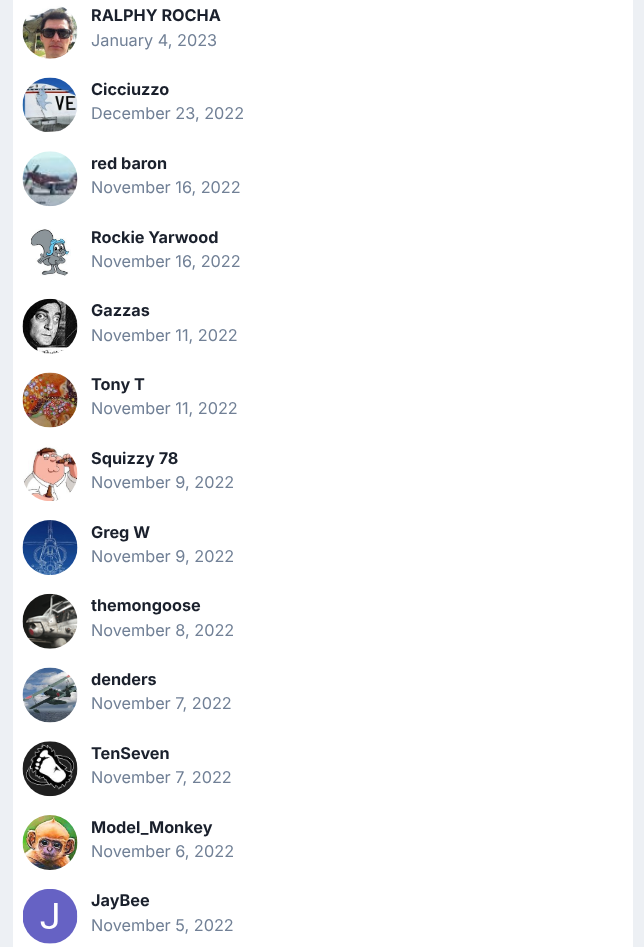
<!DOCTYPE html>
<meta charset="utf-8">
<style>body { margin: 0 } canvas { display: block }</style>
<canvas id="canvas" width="644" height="947"></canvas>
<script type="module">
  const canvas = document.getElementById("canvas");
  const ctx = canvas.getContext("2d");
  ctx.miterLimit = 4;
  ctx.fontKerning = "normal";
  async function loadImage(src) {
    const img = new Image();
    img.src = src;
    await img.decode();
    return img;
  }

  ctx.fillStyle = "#edf0f4";
  ctx.fillRect(0, 0, 644, 947);
  ctx.fillStyle = "#ffffff";
  ctx.fillRect(13, 0, 620, 947);
  ctx.drawImage(await loadImage("img1.png"), 22, 6, 56, 53);
  ctx.font = "bold 16.25px Inter";
  ctx.fillStyle = "#1a202c";
  ctx.fillText("RALPHY ROCHA", 91, 21);
  ctx.font = "16.25px Inter";
  ctx.fillStyle = "#718096";
  ctx.fillText("January 4, 2023", 91, 46);
  ctx.drawImage(await loadImage("img2.png"), 22, 77, 56, 55);
  ctx.font = "bold 16.25px Inter";
  ctx.fillStyle = "#1a202c";
  ctx.fillText("Cicciuzzo", 91, 95);
  ctx.font = "16.25px Inter";
  ctx.fillStyle = "#718096";
  ctx.fillText("December 23, 2022", 91, 119);
  ctx.drawImage(await loadImage("img3.png"), 22, 151, 56, 56);
  ctx.font = "bold 16.25px Inter";
  ctx.fillStyle = "#1a202c";
  ctx.fillText("red baron", 91, 169);
  ctx.font = "16.25px Inter";
  ctx.fillStyle = "#718096";
  ctx.fillText("November 16, 2022", 91, 193);
  ctx.drawImage(await loadImage("img4.png"), 30, 229, 41, 47);
  ctx.font = "bold 16.25px Inter";
  ctx.fillStyle = "#1a202c";
  ctx.fillText("Rockie Yarwood", 91, 243);
  ctx.font = "16.25px Inter";
  ctx.fillStyle = "#718096";
  ctx.fillText("November 16, 2022", 91, 267);
  ctx.drawImage(await loadImage("img5.png"), 22, 298, 56, 56);
  ctx.font = "bold 16.25px Inter";
  ctx.fillStyle = "#1a202c";
  ctx.fillText("Gazzas", 91, 316);
  ctx.font = "16.25px Inter";
  ctx.fillStyle = "#718096";
  ctx.fillText("November 11, 2022", 91, 341);
  ctx.drawImage(await loadImage("img6.png"), 22, 372, 56, 56);
  ctx.font = "bold 16.25px Inter";
  ctx.fillStyle = "#1a202c";
  ctx.fillText("Tony T", 91, 390);
  ctx.font = "16.25px Inter";
  ctx.fillStyle = "#718096";
  ctx.fillText("November 11, 2022", 91, 414);
  ctx.drawImage(await loadImage("img7.png"), 23, 446, 55, 55);
  ctx.font = "bold 16.25px Inter";
  ctx.fillStyle = "#1a202c";
  ctx.fillText("Squizzy 78", 91, 464);
  ctx.font = "16.25px Inter";
  ctx.fillStyle = "#718096";
  ctx.fillText("November 9, 2022", 91, 488);
  ctx.drawImage(await loadImage("img8.png"), 22, 520, 56, 55);
  ctx.font = "bold 16.25px Inter";
  ctx.fillStyle = "#1a202c";
  ctx.fillText("Greg W", 91, 538);
  ctx.font = "16.25px Inter";
  ctx.fillStyle = "#718096";
  ctx.fillText("November 9, 2022", 91, 562);
  ctx.drawImage(await loadImage("img9.png"), 22, 593, 56, 56);
  ctx.font = "bold 16.25px Inter";
  ctx.fillStyle = "#1a202c";
  ctx.fillText("themongoose", 91, 611);
  ctx.font = "16.25px Inter";
  ctx.fillStyle = "#718096";
  ctx.fillText("November 8, 2022", 91, 636);
  ctx.drawImage(await loadImage("img10.png"), 22, 667, 56, 56);
  ctx.font = "bold 16.25px Inter";
  ctx.fillStyle = "#1a202c";
  ctx.fillText("denders", 91, 685);
  ctx.font = "16.25px Inter";
  ctx.fillStyle = "#718096";
  ctx.fillText("November 7, 2022", 91, 709);
  ctx.drawImage(await loadImage("img11.png"), 22, 741, 56, 56);
  ctx.font = "bold 16.25px Inter";
  ctx.fillStyle = "#1a202c";
  ctx.fillText("TenSeven", 91, 759);
  ctx.font = "16.25px Inter";
  ctx.fillStyle = "#718096";
  ctx.fillText("November 7, 2022", 91, 783);
  ctx.drawImage(await loadImage("img12.png"), 22, 815, 56, 55);
  ctx.font = "bold 16.25px Inter";
  ctx.fillStyle = "#1a202c";
  ctx.fillText("Model_Monkey", 91, 833);
  ctx.font = "16.25px Inter";
  ctx.fillStyle = "#718096";
  ctx.fillText("November 6, 2022", 91, 857);
  ctx.drawImage(await loadImage("img13.png"), 23, 889, 55, 55);
  ctx.font = "bold 16.25px Inter";
  ctx.fillStyle = "#1a202c";
  ctx.fillText("JayBee", 91, 906);
  ctx.font = "16.25px Inter";
  ctx.fillStyle = "#718096";
  ctx.fillText("November 5, 2022", 91, 931);
</script>
